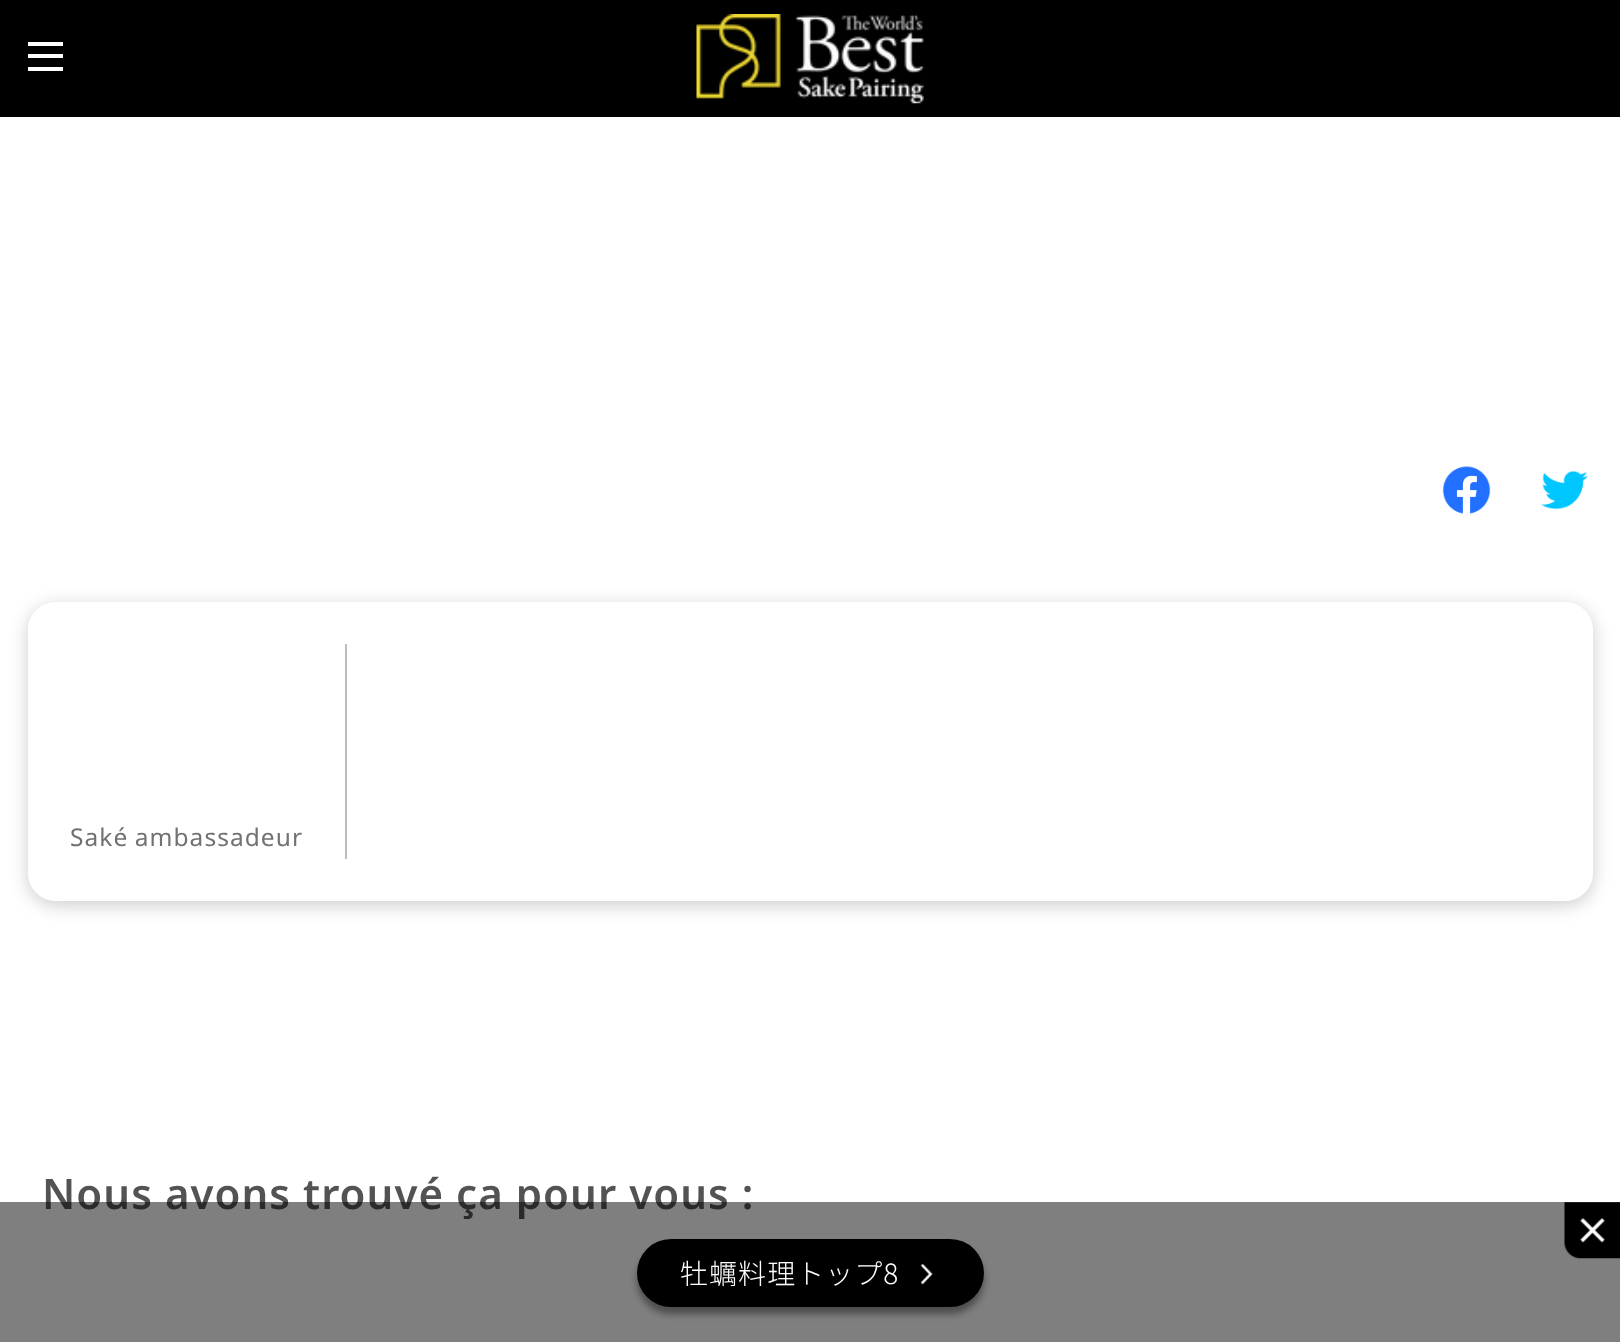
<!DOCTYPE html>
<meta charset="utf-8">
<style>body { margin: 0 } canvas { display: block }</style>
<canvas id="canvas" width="1620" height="1342"></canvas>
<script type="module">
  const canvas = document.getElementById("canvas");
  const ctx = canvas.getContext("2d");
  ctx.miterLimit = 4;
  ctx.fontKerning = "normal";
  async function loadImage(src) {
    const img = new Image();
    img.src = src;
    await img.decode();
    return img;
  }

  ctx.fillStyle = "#ffffff";
  ctx.fillRect(0, 0, 1620, 1342);
  ctx.fillStyle = "#000000";
  ctx.fillRect(0, 0, 1620, 117);
  ctx.fillStyle = "#ffffff";
  ctx.fillRect(28, 42, 35, 4);
  ctx.fillRect(28, 54, 35, 4);
  ctx.fillRect(28, 67, 35, 4);
  ctx.drawImage(await loadImage("img1.png"), 696, 14, 228, 90);
  ctx.drawImage(await loadImage("img2.png"), 1442, 466, 49, 48);
  ctx.drawImage(await loadImage("img3.png"), 1541, 470, 47, 40);
  ctx.save();
  ctx.beginPath();
  ctx.moveTo(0, 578);
  ctx.lineTo(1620, 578);
  ctx.lineTo(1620, 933);
  ctx.lineTo(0, 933);
  ctx.closePath();
  ctx.moveTo(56, 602);
  ctx.lineTo(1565, 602);
  ctx.bezierCurveTo(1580.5, 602, 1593, 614.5, 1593, 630);
  ctx.lineTo(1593, 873);
  ctx.bezierCurveTo(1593, 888.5, 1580.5, 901, 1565, 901);
  ctx.lineTo(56, 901);
  ctx.bezierCurveTo(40.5, 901, 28, 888.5, 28, 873);
  ctx.lineTo(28, 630);
  ctx.bezierCurveTo(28, 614.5, 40.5, 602, 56, 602);
  ctx.closePath();
  ctx.clip("evenodd");
  ctx.fillStyle = "rgba(0, 0, 0, 0.2)";
  ctx.filter = "blur(9px)";
  ctx.beginPath();
  ctx.roundRect(28, 606, 1565, 299, 28);
  ctx.fill();
  ctx.filter = "none";
  ctx.restore();
  ctx.fillStyle = "#bdbdbd";
  ctx.fillRect(345, 644, 2, 215);
  ctx.letterSpacing = "1.05px";
  ctx.wordSpacing = "-1px";
  ctx.font = "24.5px Noto Sans";
  ctx.fillStyle = "#727171";
  ctx.fillText("Saké ambassadeur", 70, 846);
  ctx.wordSpacing = "0px";
  ctx.font = "600 42px Noto Sans";
  ctx.fillStyle = "#535452";
  ctx.fillText("Nous avons trouvé ça pour vous :", 42, 1209);
  ctx.fillStyle = "rgba(0, 0, 0, 0.5)";
  ctx.fillRect(0, 1202, 1620, 140);
  ctx.drawImage(await loadImage("img4.png"), 1564, 1202, 56, 57);
  ctx.fillStyle = "rgba(0, 0, 0, 0.4)";
  ctx.filter = "blur(3.5px)";
  ctx.beginPath();
  ctx.roundRect(637, 1246, 347, 68, 34);
  ctx.fill();
  ctx.filter = "none";
  ctx.fillStyle = "#000000";
  ctx.beginPath();
  ctx.roundRect(637, 1239, 347, 68, 34);
  ctx.fill();
  ctx.font = "300 28px Noto Sans JP";
  ctx.fillStyle = "#ffffff";
  ctx.fillText("牡蠣料理トップ8", 680, 1284);
  ctx.drawImage(await loadImage("img5.png"), 920, 1263, 13, 22);
</script>
